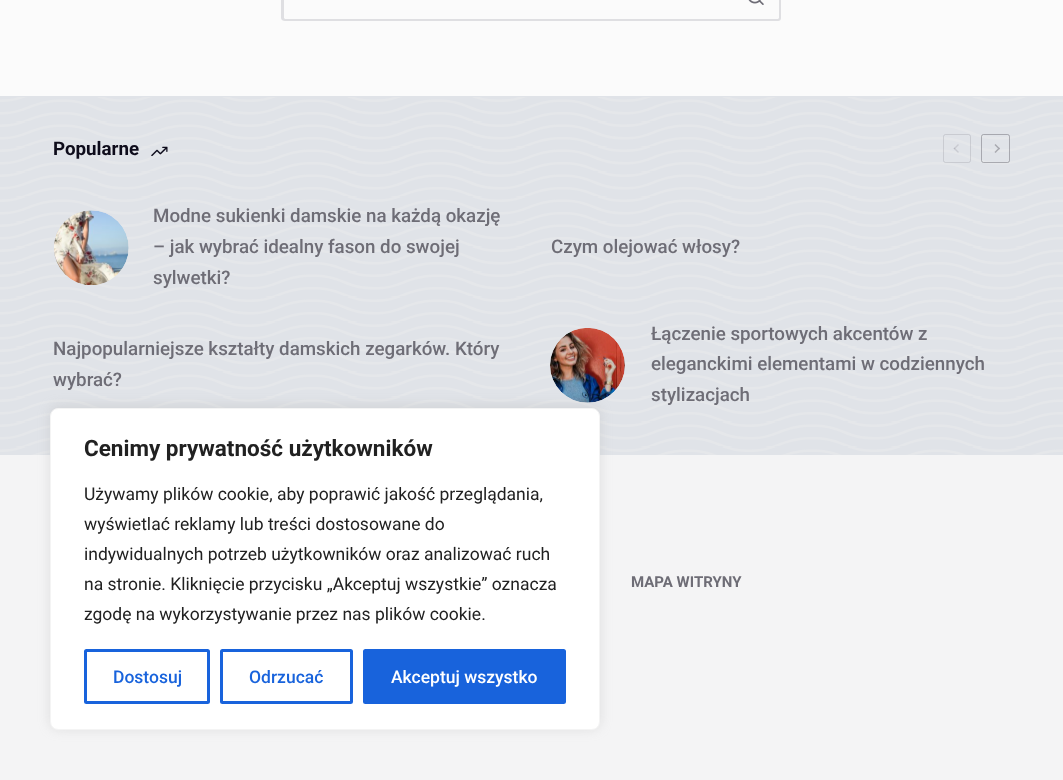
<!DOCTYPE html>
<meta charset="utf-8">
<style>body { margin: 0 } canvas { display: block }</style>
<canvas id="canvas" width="1063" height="780"></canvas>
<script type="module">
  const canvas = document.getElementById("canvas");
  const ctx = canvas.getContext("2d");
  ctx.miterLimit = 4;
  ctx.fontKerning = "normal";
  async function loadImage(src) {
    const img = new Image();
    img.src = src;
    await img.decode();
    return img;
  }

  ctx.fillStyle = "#fbfbfb";
  ctx.fillRect(0, 0, 1063, 780);
  ctx.fillStyle = "#dfdfe2";
  ctx.beginPath();
  ctx.moveTo(285, -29);
  ctx.lineTo(731, -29);
  ctx.lineTo(731, 21);
  ctx.lineTo(285, 21);
  ctx.bezierCurveTo(283, 21, 281, 20, 281, 18);
  ctx.lineTo(281, -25);
  ctx.bezierCurveTo(281, -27, 283, -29, 285, -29);
  ctx.closePath();
  ctx.moveTo(285, -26);
  ctx.lineTo(731, -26);
  ctx.lineTo(731, 19);
  ctx.lineTo(285, 19);
  ctx.lineTo(284, 18);
  ctx.lineTo(284, -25);
  ctx.bezierCurveTo(284, -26, 284, -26, 285, -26);
  ctx.closePath();
  ctx.fill("evenodd");
  ctx.beginPath();
  ctx.moveTo(731, -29);
  ctx.lineTo(778, -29);
  ctx.bezierCurveTo(780, -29, 781, -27, 781, -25);
  ctx.lineTo(781, 18);
  ctx.bezierCurveTo(781, 20, 780, 21, 778, 21);
  ctx.lineTo(731, 21);
  ctx.closePath();
  ctx.moveTo(731, -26);
  ctx.lineTo(778, -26);
  ctx.bezierCurveTo(778, -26, 779, -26, 779, -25);
  ctx.lineTo(779, 18);
  ctx.bezierCurveTo(779, 18, 778, 19, 778, 19);
  ctx.lineTo(731, 19);
  ctx.closePath();
  ctx.fill("evenodd");
  ctx.drawImage(await loadImage("img1.png"), 748, 0, 16, 5);
  ctx.fillStyle = "#e0e3e8";
  ctx.fillRect(0, 96, 1063, 359);
  ctx.drawImage(await loadImage("img2.png"), 0, 97, 1063, 358);
  ctx.font = "bold 18.75px Roboto";
  ctx.fillStyle = "#0e0c1b";
  ctx.fillText("Popularne", 53, 155);
  ctx.drawImage(await loadImage("img3.png"), 151, 146, 17, 10);
  ctx.beginPath();
  ctx.roundRect(943.5, 134.5, 27, 28, 2);
  ctx.strokeStyle = "rgba(110, 109, 118, 0.2)";
  ctx.stroke();
  ctx.fillStyle = "#c9cbd1";
  ctx.beginPath();
  ctx.moveTo(953.5, 148.5);
  ctx.lineTo(958, 144);
  ctx.lineTo(959, 145);
  ctx.lineTo(954.5, 149.5);
  ctx.closePath();
  ctx.fill();
  ctx.fillStyle = "rgba(110, 109, 118, 0.2)";
  ctx.beginPath();
  ctx.moveTo(953.5, 148.5);
  ctx.lineTo(954.5, 147.5);
  ctx.lineTo(959, 152);
  ctx.lineTo(958, 153);
  ctx.closePath();
  ctx.fill();
  ctx.beginPath();
  ctx.roundRect(981.5, 134.5, 28, 28, 2);
  ctx.strokeStyle = "rgba(110, 109, 118, 0.5)";
  ctx.stroke();
  ctx.fillStyle = "rgba(110, 109, 118, 0.5)";
  ctx.beginPath();
  ctx.moveTo(1000, 148.5);
  ctx.lineTo(995.5, 153);
  ctx.lineTo(994.5, 152);
  ctx.lineTo(999, 147.5);
  ctx.closePath();
  ctx.fill();
  ctx.fillStyle = "#a7a8af";
  ctx.beginPath();
  ctx.moveTo(1000, 148.5);
  ctx.lineTo(999, 149.5);
  ctx.lineTo(994.5, 145);
  ctx.lineTo(995.5, 144);
  ctx.closePath();
  ctx.fill();
  ctx.drawImage(await loadImage("img4.png"), 54, 210, 75, 75);
  ctx.font = "500 18.75px Roboto";
  ctx.fillStyle = "#6e6d76";
  ctx.fillText("Modne sukienki damskie na każdą okazję", 153, 222);
  ctx.fillText("– jak wybrać idealny fason do swojej", 153, 253);
  ctx.fillText("sylwetki?", 153, 284);
  ctx.fillText("Czym olejować włosy?", 551, 253);
  ctx.fillText("Najpopularniejsze kształty damskich zegarków. Który", 53, 355);
  ctx.fillText("wybrać?", 53, 386);
  ctx.drawImage(await loadImage("img5.png"), 550, 328, 75, 75);
  ctx.fillText("Łączenie sportowych akcentów z", 651, 340);
  ctx.fillText("eleganckimi elementami w codziennych", 651, 370);
  ctx.fillText("stylizacjach", 651, 401);
  ctx.fillStyle = "#f4f4f5";
  ctx.fillRect(0, 455, 1063, 325);
  ctx.font = "bold 15px Roboto";
  ctx.fillStyle = "#6e6d76";
  ctx.fillText("MAPA WITRYNY", 631, 587);
  ctx.fillStyle = "rgba(172, 171, 171, 0.3)";
  ctx.filter = "blur(6px)";
  ctx.beginPath();
  ctx.roundRect(50, 406, 550, 323, 8);
  ctx.fill();
  ctx.filter = "none";
  ctx.fillStyle = "#ffffff";
  ctx.beginPath();
  ctx.roundRect(50.5, 408.5, 549, 321, 7.5);
  ctx.fill();
  ctx.strokeStyle = "#f4f4f4";
  ctx.stroke();
  ctx.font = "bold 22.5px Roboto";
  ctx.fillStyle = "#212121";
  ctx.fillText("Cenimy prywatność użytkowników", 84, 456);
  ctx.font = "17.5px Roboto";
  ctx.fillText("Używamy plików cookie, aby poprawić jakość przeglądania,", 84, 500);
  ctx.fillText("wyświetlać reklamy lub treści dostosowane do", 84, 530);
  ctx.fillText("indywidualnych potrzeb użytkowników oraz analizować ruch", 84, 560);
  ctx.fillText("na stronie. Kliknięcie przycisku „Akceptuj wszystkie” oznacza", 84, 590);
  ctx.fillText("zgodę na wykorzystywanie przez nas plików cookie.", 84, 620);
  ctx.beginPath();
  ctx.roundRect(85.5, 650.5, 123, 52, 1);
  ctx.strokeStyle = "#1863dc";
  ctx.lineWidth = 3;
  ctx.stroke();
  ctx.font = "500 17.5px Roboto";
  ctx.fillStyle = "#1863dc";
  ctx.fillText("Dostosuj", 113, 683);
  ctx.beginPath();
  ctx.roundRect(221.5, 650.5, 130, 52, 1);
  ctx.stroke();
  ctx.fillText("Odrzucać", 249, 683);
  ctx.beginPath();
  ctx.roundRect(364.5, 650.5, 200, 52, 1);
  ctx.fill();
  ctx.stroke();
  ctx.fillStyle = "#ffffff";
  ctx.fillText("Akceptuj wszystko", 391, 683);
</script>
